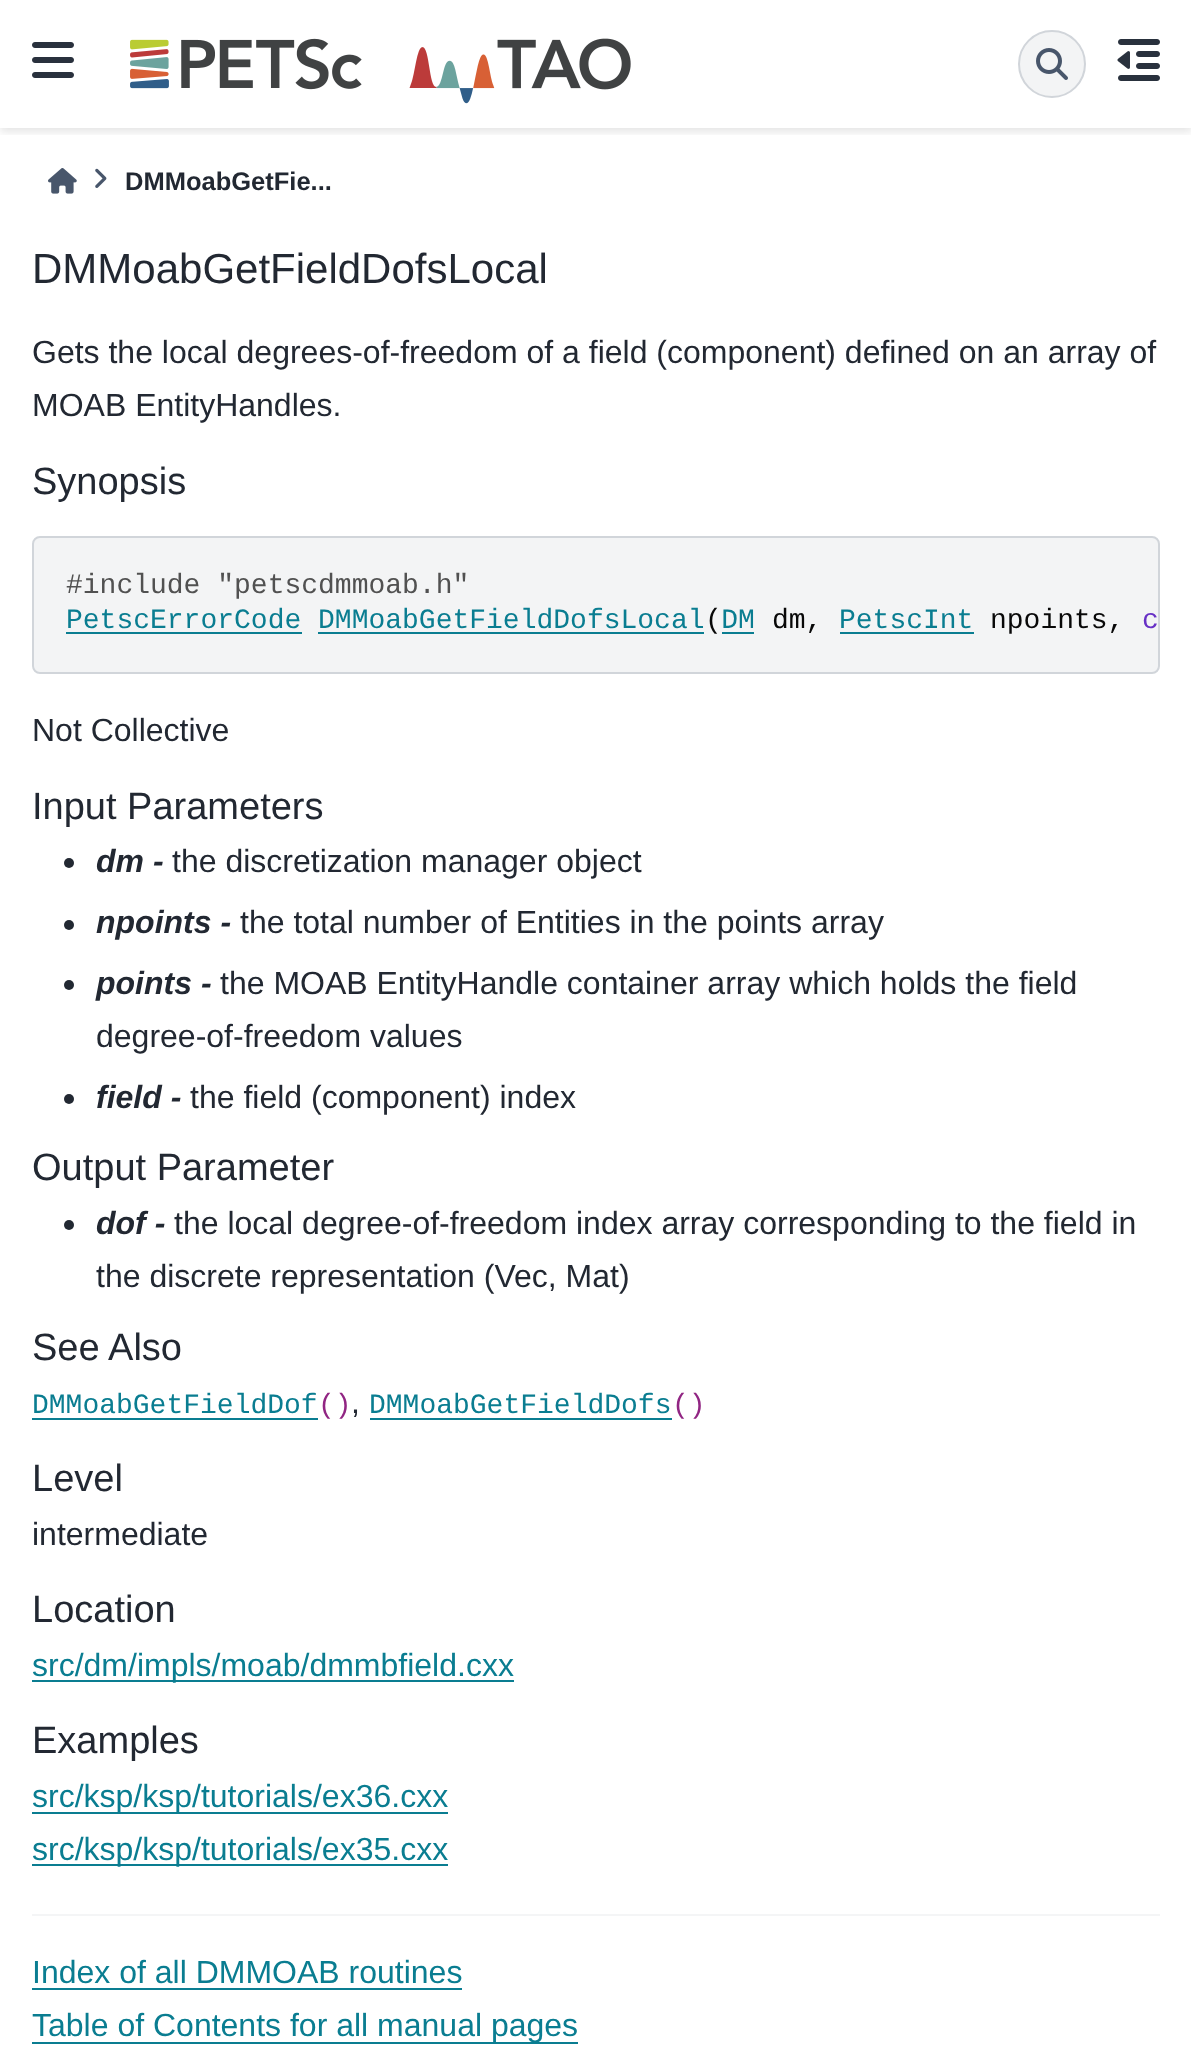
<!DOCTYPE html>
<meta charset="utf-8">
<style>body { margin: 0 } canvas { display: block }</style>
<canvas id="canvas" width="1191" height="2058"></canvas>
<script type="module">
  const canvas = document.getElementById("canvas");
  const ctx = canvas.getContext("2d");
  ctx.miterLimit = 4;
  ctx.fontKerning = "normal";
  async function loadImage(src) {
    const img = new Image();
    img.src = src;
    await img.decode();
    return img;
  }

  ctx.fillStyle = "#ffffff";
  ctx.fillRect(0, 0, 1191, 2058);
  ctx.save();
  ctx.beginPath();
  ctx.rect(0, 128, 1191, 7);
  ctx.clip();
  ctx.fillStyle = "rgba(0, 0, 0, 0.1)";
  ctx.filter = "blur(4px)";
  ctx.beginPath();
  ctx.rect(0, 4, 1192, 128);
  ctx.fill();
  ctx.filter = "none";
  ctx.restore();
  ctx.drawImage(await loadImage("img1.png"), 32, 42, 42, 36);
  ctx.drawImage(await loadImage("img2.png"), 130, 38, 501, 66);
  ctx.fillStyle = "#f3f4f5";
  ctx.beginPath();
  ctx.arc(1052, 64, 33, 0, Math.PI * 2);
  ctx.fill();
  ctx.strokeStyle = "#d1d5da";
  ctx.lineWidth = 2;
  ctx.stroke();
  ctx.drawImage(await loadImage("img3.png"), 1036, 48, 32, 32);
  ctx.drawImage(await loadImage("img4.png"), 1117, 39, 43, 42);
  ctx.drawImage(await loadImage("img5.png"), 48, 168, 29, 26);
  ctx.drawImage(await loadImage("img6.png"), 95, 168, 12, 20);
  ctx.font = "bold 25.5px Liberation Sans";
  ctx.fillStyle = "#222832";
  ctx.fillText("DMMoabGetFie...", 125, 190);
  ctx.font = "42px Liberation Sans";
  ctx.fillText("DMMoabGetFieldDofsLocal", 32, 283);
  ctx.font = "32px Liberation Sans";
  ctx.fillText("Gets the local degrees-of-freedom of a field (component) defined on an array of", 32, 363);
  ctx.fillText("MOAB EntityHandles.", 32, 416);
  ctx.font = "38px Liberation Sans";
  ctx.fillText("Synopsis", 32, 494);
  ctx.fillStyle = "#f3f4f5";
  ctx.beginPath();
  ctx.roundRect(33, 537, 1126, 136, 7);
  ctx.fill();
  ctx.stroke();
  ctx.font = "28px Liberation Mono";
  ctx.fillStyle = "#515151";
  ctx.fillText("#include \"petscdmmoab.h\"", 66, 593);
  ctx.fillStyle = "#0a7d91";
  ctx.fillText("PetscErrorCode DMMoabGetFieldDofsLocal DM", 66, 628);
  ctx.fillRect(66, 632, 236, 2);
  ctx.fillStyle = "#080808";
  ctx.fillText("(", 705, 628);
  ctx.fillText("dm,", 772, 628);
  ctx.fillStyle = "#0a7d91";
  ctx.fillText("PetscInt", 839, 628);
  ctx.fillRect(840, 632, 134, 2);
  ctx.fillStyle = "#080808";
  ctx.fillText("npoints,", 990, 628);
  ctx.fillStyle = "#6730c5";
  ctx.fillText("c", 1142, 628);
  ctx.fillStyle = "#0a7d91";
  ctx.fillRect(318, 632, 386, 2);
  ctx.fillRect(722, 632, 32, 2);
  ctx.font = "32px Liberation Sans";
  ctx.fillStyle = "#222832";
  ctx.fillText("Not Collective", 32, 741);
  ctx.font = "38px Liberation Sans";
  ctx.fillText("Input Parameters", 32, 819);
  ctx.beginPath();
  ctx.arc(69, 863, 5, 0, Math.PI * 2);
  ctx.fill();
  ctx.font = "italic bold 32px Liberation Sans";
  ctx.fillText("dm -", 96, 872);
  ctx.font = "32px Liberation Sans";
  ctx.fillText("the discretization manager object", 172, 872);
  ctx.beginPath();
  ctx.arc(69, 925, 5, 0, Math.PI * 2);
  ctx.fill();
  ctx.font = "italic bold 32px Liberation Sans";
  ctx.fillText("npoints -", 96, 933);
  ctx.font = "32px Liberation Sans";
  ctx.fillText("the total number of Entities in the points array", 240, 933);
  ctx.beginPath();
  ctx.arc(69, 985, 5, 0, Math.PI * 2);
  ctx.fill();
  ctx.font = "italic bold 32px Liberation Sans";
  ctx.fillText("points -", 96, 994);
  ctx.font = "32px Liberation Sans";
  ctx.fillText("the MOAB EntityHandle container array which holds the field", 220, 994);
  ctx.fillText("degree-of-freedom values", 96, 1047);
  ctx.beginPath();
  ctx.arc(69, 1099, 5, 0, Math.PI * 2);
  ctx.fill();
  ctx.font = "italic bold 32px Liberation Sans";
  ctx.fillText("field -", 96, 1108);
  ctx.font = "32px Liberation Sans";
  ctx.fillText("the field (component) index", 190, 1108);
  ctx.font = "38px Liberation Sans";
  ctx.fillText("Output Parameter", 32, 1180);
  ctx.beginPath();
  ctx.arc(69, 1225, 5, 0, Math.PI * 2);
  ctx.fill();
  ctx.font = "italic bold 32px Liberation Sans";
  ctx.fillText("dof -", 96, 1234);
  ctx.font = "32px Liberation Sans";
  ctx.fillText("the local degree-of-freedom index array corresponding to the field in", 174, 1234);
  ctx.fillText("the discrete representation (Vec, Mat)", 96, 1287);
  ctx.font = "38px Liberation Sans";
  ctx.fillText("See Also", 32, 1360);
  ctx.font = "28px Liberation Mono";
  ctx.fillStyle = "#0a7d91";
  ctx.fillText("DMMoabGetFieldDof", 32, 1413);
  ctx.fillStyle = "#912583";
  ctx.fillText("()", 318, 1413);
  ctx.fillStyle = "#0a7d91";
  ctx.fillRect(32, 1418, 286, 2);
  ctx.font = "32px Liberation Sans";
  ctx.fillStyle = "#222832";
  ctx.fillText(",", 351, 1413);
  ctx.font = "28px Liberation Mono";
  ctx.fillStyle = "#0a7d91";
  ctx.fillText("DMMoabGetFieldDofs", 369, 1413);
  ctx.fillStyle = "#912583";
  ctx.fillText("()", 672, 1413);
  ctx.fillStyle = "#0a7d91";
  ctx.fillRect(370, 1418, 302, 2);
  ctx.font = "38px Liberation Sans";
  ctx.fillStyle = "#222832";
  ctx.fillText("Level", 32, 1491);
  ctx.font = "32px Liberation Sans";
  ctx.fillText("intermediate", 32, 1545);
  ctx.font = "38px Liberation Sans";
  ctx.fillText("Location", 32, 1622);
  ctx.fillStyle = "#0a7d91";
  ctx.fillRect(32, 1680, 482, 2);
  ctx.font = "32px Liberation Sans";
  ctx.fillText("src/dm/impls/moab/dmmbfield.cxx", 32, 1676);
  ctx.font = "38px Liberation Sans";
  ctx.fillStyle = "#222832";
  ctx.fillText("Examples", 32, 1753);
  ctx.fillStyle = "#0a7d91";
  ctx.fillRect(32, 1812, 416, 2);
  ctx.font = "32px Liberation Sans";
  ctx.fillText("src/ksp/ksp/tutorials/ex36.cxx", 32, 1807);
  ctx.fillRect(32, 1864, 416, 2);
  ctx.fillText("src/ksp/ksp/tutorials/ex35.cxx", 32, 1860);
  ctx.fillStyle = "#f4f5f6";
  ctx.fillRect(32, 1914, 1128, 2);
  ctx.fillStyle = "#0a7d91";
  ctx.fillText("Index of all DMMOAB routines", 32, 1983);
  ctx.fillRect(32, 1988, 430, 2);
  ctx.fillRect(32, 2042, 546, 2);
  ctx.fillText("Table of Contents for all manual pages", 32, 2036);
</script>
